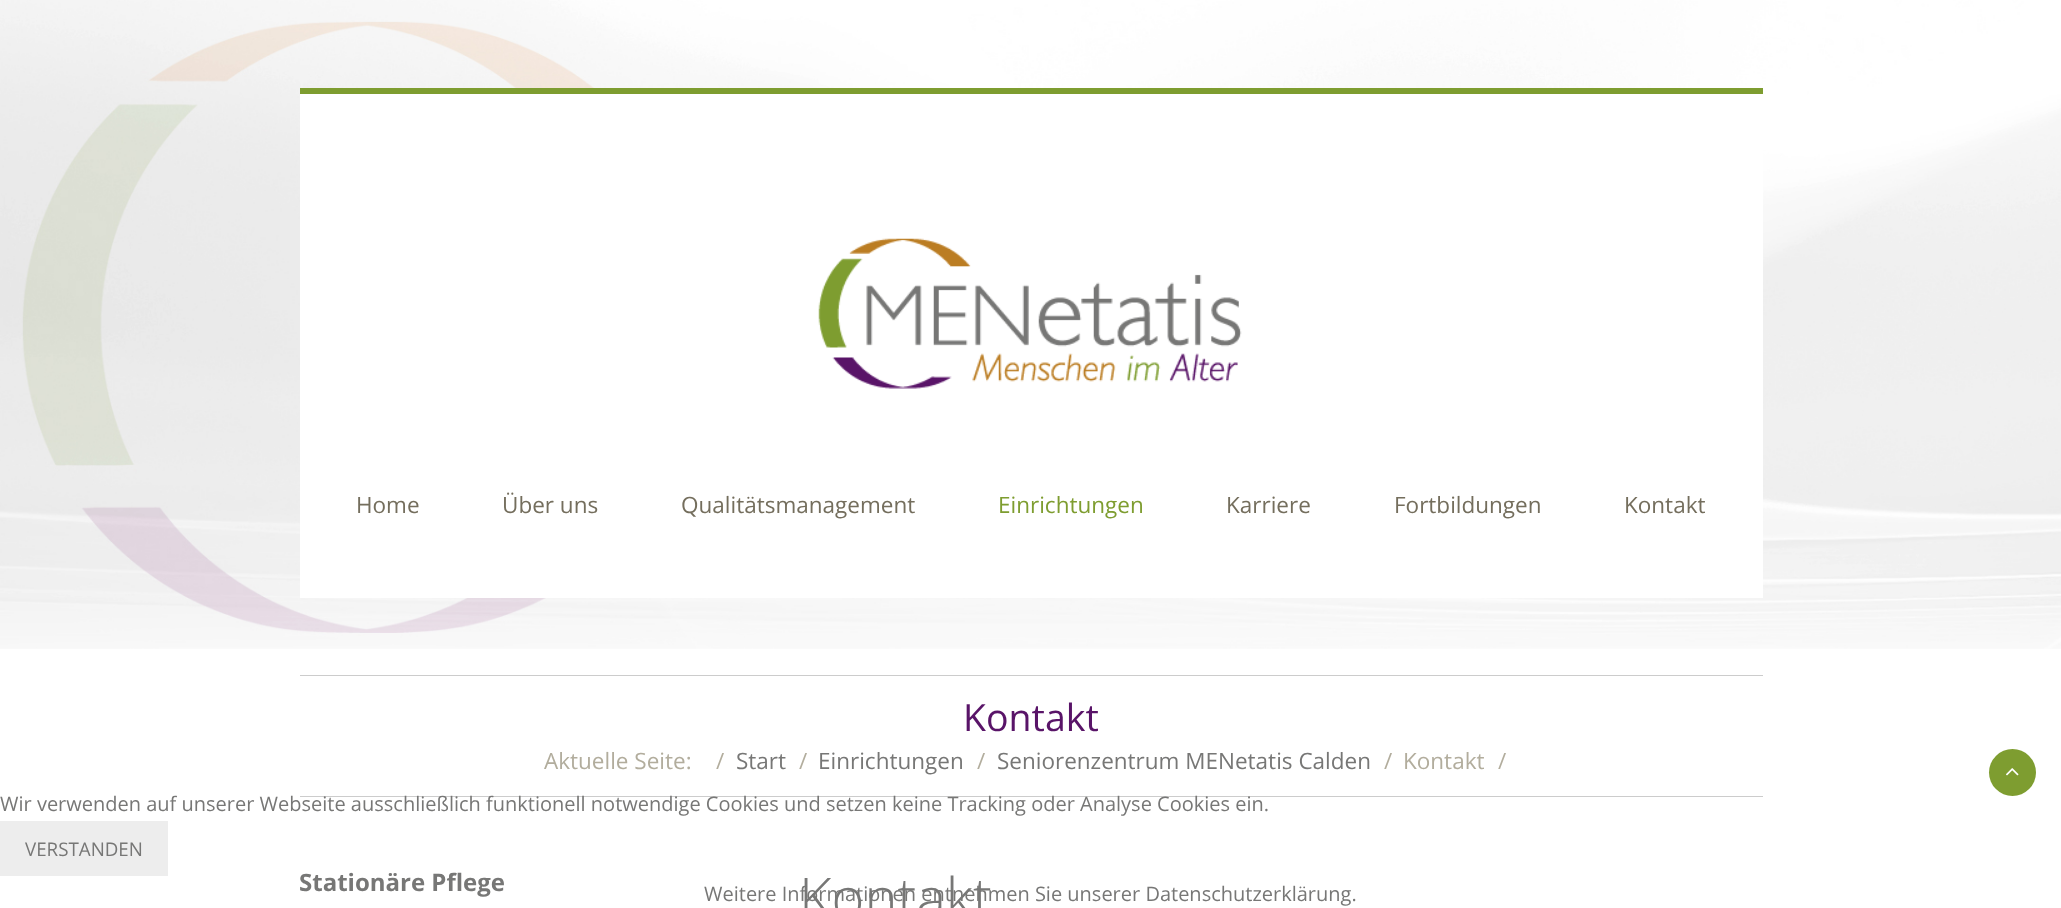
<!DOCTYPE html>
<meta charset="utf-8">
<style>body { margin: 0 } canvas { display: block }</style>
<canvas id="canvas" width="2061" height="908"></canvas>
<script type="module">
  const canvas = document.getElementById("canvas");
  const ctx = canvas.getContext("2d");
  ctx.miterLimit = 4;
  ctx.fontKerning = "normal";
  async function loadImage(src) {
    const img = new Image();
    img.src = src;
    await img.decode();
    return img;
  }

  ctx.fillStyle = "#ffffff";
  ctx.fillRect(0, 0, 2061, 908);
  ctx.drawImage(await loadImage("img1.png"), 0, 0, 2061, 649);
  ctx.fillStyle = "#7e9d30";
  ctx.fillRect(300, 88, 1463, 6);
  ctx.fillStyle = "#ffffff";
  ctx.fillRect(300, 94, 1463, 504);
  ctx.drawImage(await loadImage("img2.png"), 818, 238, 424, 151);
  ctx.font = "22.5px Open Sans";
  ctx.fillStyle = "#746e5d";
  ctx.fillText("Home", 356, 513);
  ctx.fillText("Über uns", 502, 513);
  ctx.fillText("Qualitätsmanagement", 681, 513);
  ctx.fillStyle = "#7e9d30";
  ctx.fillText("Einrichtungen", 998, 513);
  ctx.fillStyle = "#746e5d";
  ctx.fillText("Karriere", 1226, 513);
  ctx.fillText("Fortbildungen", 1394, 513);
  ctx.fillText("Kontakt", 1624, 513);
  ctx.fillStyle = "#cccccc";
  ctx.fillRect(300, 675, 1463, 1);
  ctx.fillRect(300, 796, 1463, 1);
  ctx.font = "37.5px Open Sans";
  ctx.fillStyle = "#591468";
  ctx.fillText("Kontakt", 963, 731);
  ctx.font = "22.5px Open Sans";
  ctx.fillStyle = "#b2ad9d";
  ctx.fillText("Aktuelle Seite:", 544, 769);
  ctx.fillText("/", 716, 769);
  ctx.fillStyle = "#777776";
  ctx.fillText("Start", 736, 769);
  ctx.fillStyle = "#b2ad9d";
  ctx.fillText("/", 799, 769);
  ctx.fillStyle = "#777776";
  ctx.fillText("Einrichtungen", 818, 769);
  ctx.fillStyle = "#b2ad9d";
  ctx.fillText("/", 977, 769);
  ctx.fillStyle = "#777776";
  ctx.fillText("Seniorenzentrum MENetatis Calden", 997, 769);
  ctx.fillStyle = "#b2ad9d";
  ctx.fillText("/", 1384, 769);
  ctx.fillText("Kontakt", 1403, 769);
  ctx.fillText("/", 1498, 769);
  ctx.font = "bold 24px Open Sans";
  ctx.fillStyle = "#777776";
  ctx.fillText("Stationäre Pflege", 299, 891);
  ctx.font = "300 56px Open Sans";
  ctx.fillText("Kontakt", 799, 918);
  ctx.fillStyle = "#7e9d30";
  ctx.beginPath();
  ctx.arc(2012.5, 772.5, 23.5, 0, Math.PI * 2);
  ctx.fill();
  ctx.drawImage(await loadImage("img3.png"), 2006, 768, 13, 8);
  ctx.font = "20px Open Sans";
  ctx.fillStyle = "#777776";
  ctx.fillText("Wir verwenden auf unserer Webseite ausschließlich funktionell notwendige Cookies und setzen keine Tracking oder Analyse Cookies ein.", 0, 811);
  ctx.fillStyle = "#ededed";
  ctx.fillRect(0, 821, 168, 55);
  ctx.font = "18.75px Open Sans";
  ctx.fillStyle = "#777776";
  ctx.fillText("VERSTANDEN", 25, 856);
  ctx.font = "20px Open Sans";
  ctx.fillText("Weitere Informationen entnehmen Sie unserer Datenschutzerklärung.", 704, 901);
</script>
